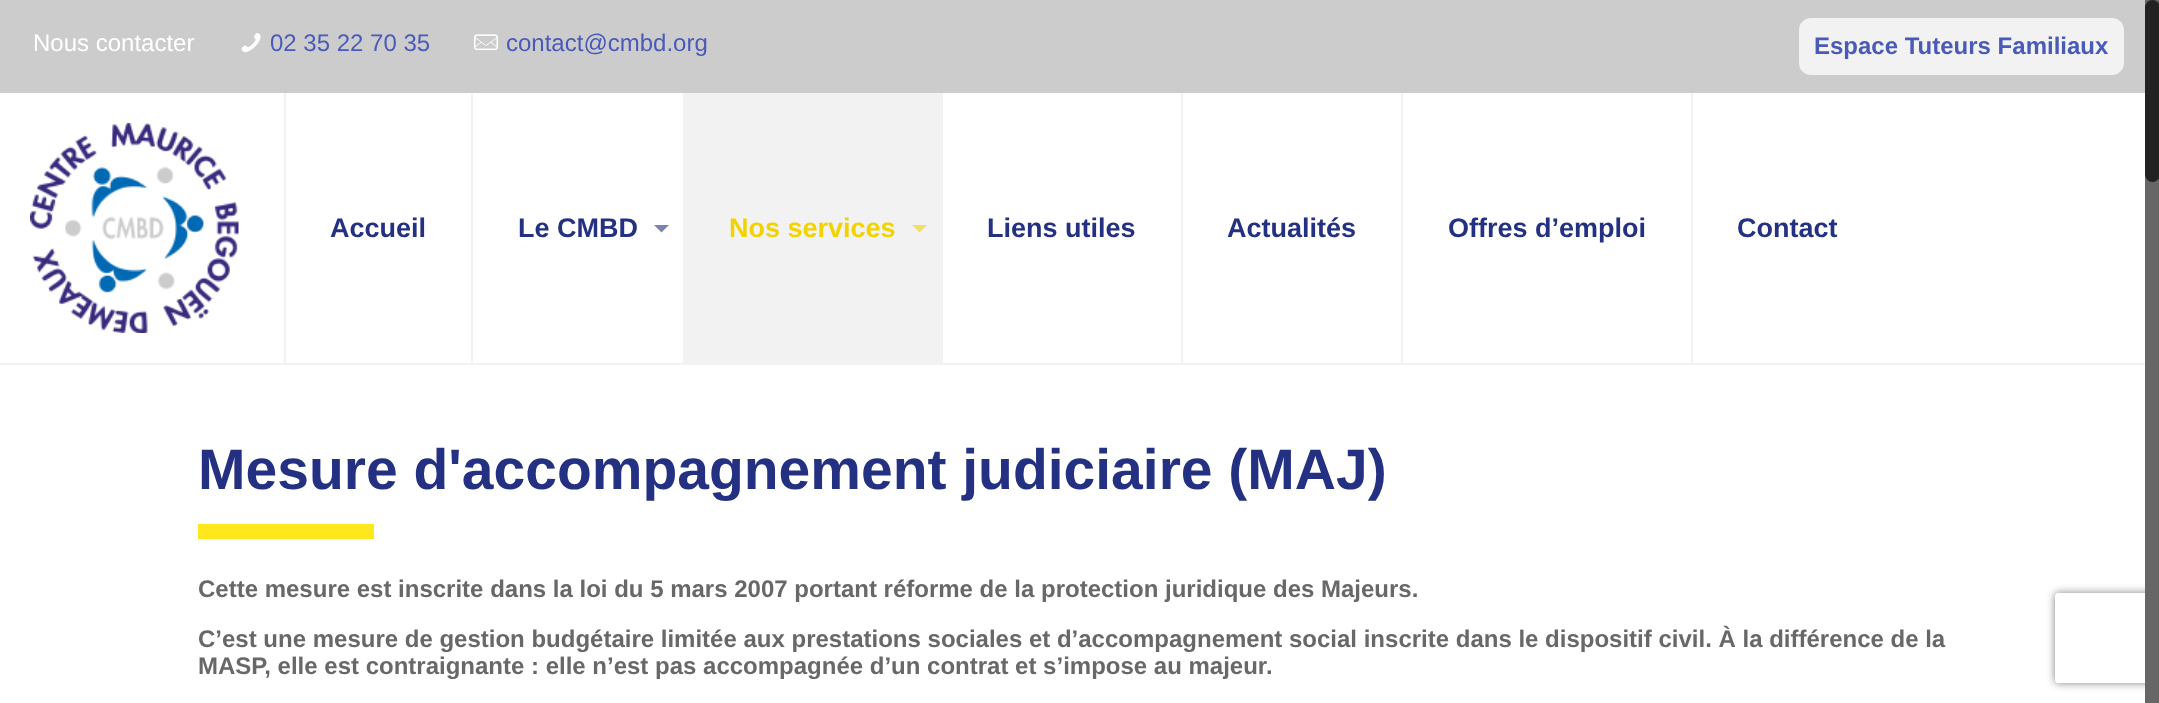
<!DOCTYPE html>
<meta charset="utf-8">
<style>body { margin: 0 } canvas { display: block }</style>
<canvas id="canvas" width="2159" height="703"></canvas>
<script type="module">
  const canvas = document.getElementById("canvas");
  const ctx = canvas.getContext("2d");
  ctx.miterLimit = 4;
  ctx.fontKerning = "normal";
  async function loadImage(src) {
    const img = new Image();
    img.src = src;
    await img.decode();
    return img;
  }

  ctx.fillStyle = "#ffffff";
  ctx.fillRect(0, 0, 2159, 703);
  ctx.fillStyle = "#cccccc";
  ctx.fillRect(0, 0, 2145, 93);
  ctx.font = "24px Liberation Sans";
  ctx.fillStyle = "#ffffff";
  ctx.fillText("Nous contacter", 33, 51);
  ctx.drawImage(await loadImage("img1.png"), 241, 33, 20, 20);
  ctx.fillStyle = "#4a5ab8";
  ctx.fillText("02 35 22 70 35", 270, 51);
  ctx.drawImage(await loadImage("img2.png"), 474, 34, 24, 16);
  ctx.fillText("contact@cmbd.org", 506, 51);
  ctx.fillStyle = "#f2f2f2";
  ctx.beginPath();
  ctx.roundRect(1806.5, 25.5, 310, 42, 4.5);
  ctx.fill();
  ctx.strokeStyle = "#f2f2f2";
  ctx.lineWidth = 15;
  ctx.stroke();
  ctx.font = "bold 24px Liberation Sans";
  ctx.fillStyle = "#4a5ab8";
  ctx.fillText("Espace Tuteurs Familiaux", 1814, 54);
  ctx.fillStyle = "#f2f2f2";
  ctx.fillRect(0, 363, 2145, 2);
  ctx.drawImage(await loadImage("img3.png"), 30, 123, 209, 210);
  ctx.fillRect(471, 93, 2, 270);
  ctx.fillRect(284, 93, 2, 270);
  ctx.font = "bold 27px Liberation Sans";
  ctx.fillStyle = "#243182";
  ctx.fillText("Accueil", 330, 237);
  ctx.fillStyle = "#f2f2f2";
  ctx.fillRect(683, 93, 260, 270);
  ctx.fillStyle = "#243182";
  ctx.fillText("Le CMBD", 518, 237);
  ctx.fillStyle = "#7c83b4";
  ctx.beginPath();
  ctx.moveTo(654, 225);
  ctx.lineTo(669, 225);
  ctx.lineTo(661.5, 232.5);
  ctx.closePath();
  ctx.fill();
  ctx.fillStyle = "#f2d300";
  ctx.fillText("Nos services", 729, 237);
  ctx.fillStyle = "#f2df61";
  ctx.beginPath();
  ctx.moveTo(912, 225);
  ctx.lineTo(927, 225);
  ctx.lineTo(919.5, 232.5);
  ctx.closePath();
  ctx.fill();
  ctx.fillStyle = "#f2f2f2";
  ctx.fillRect(1181, 93, 2, 270);
  ctx.fillStyle = "#243182";
  ctx.fillText("Liens utiles", 987, 237);
  ctx.fillStyle = "#f2f2f2";
  ctx.fillRect(1401, 93, 2, 270);
  ctx.fillStyle = "#243182";
  ctx.fillText("Actualités", 1227, 237);
  ctx.fillStyle = "#f2f2f2";
  ctx.fillRect(1691, 93, 2, 270);
  ctx.fillStyle = "#243182";
  ctx.fillText("Offres d’emploi", 1448, 237);
  ctx.fillText("Contact", 1737, 237);
  ctx.font = "bold 57px Liberation Sans";
  ctx.fillText("Mesure d'accompagnement judiciaire (MAJ)", 198, 489);
  ctx.fillStyle = "#ffe71e";
  ctx.fillRect(198, 524, 176, 15);
  ctx.font = "bold 24px Liberation Sans";
  ctx.fillStyle = "#686868";
  ctx.fillText("Cette mesure est inscrite dans la loi du 5 mars 2007 portant réforme de la protection juridique des Majeurs.", 198, 597);
  ctx.fillText("C’est une mesure de gestion budgétaire limitée aux prestations sociales et d’accompagnement social inscrite dans le dispositif civil. À la différence de la", 198, 647);
  ctx.fillText("MASP, elle est contraignante : elle n’est pas accompagnée d’un contrat et s’impose au majeur.", 198, 674);
  ctx.save();
  ctx.beginPath();
  ctx.moveTo(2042, 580);
  ctx.lineTo(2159, 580);
  ctx.lineTo(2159, 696);
  ctx.lineTo(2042, 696);
  ctx.closePath();
  ctx.moveTo(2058, 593);
  ctx.lineTo(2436, 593);
  ctx.bezierCurveTo(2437.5, 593, 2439, 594.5, 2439, 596);
  ctx.lineTo(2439, 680);
  ctx.bezierCurveTo(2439, 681.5, 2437.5, 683, 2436, 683);
  ctx.lineTo(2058, 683);
  ctx.bezierCurveTo(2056.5, 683, 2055, 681.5, 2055, 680);
  ctx.lineTo(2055, 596);
  ctx.bezierCurveTo(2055, 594.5, 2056.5, 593, 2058, 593);
  ctx.closePath();
  ctx.clip("evenodd");
  ctx.fillStyle = "#808080";
  ctx.filter = "blur(4px)";
  ctx.beginPath();
  ctx.roundRect(2055, 593, 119, 90, 3);
  ctx.fill();
  ctx.filter = "none";
  ctx.restore();
  ctx.fillStyle = "#666666";
  ctx.fillRect(2145, 0, 14, 703);
  ctx.fillStyle = "#222222";
  ctx.beginPath();
  ctx.roundRect(2145, 0, 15, 182, 7.5);
  ctx.fill();
</script>
